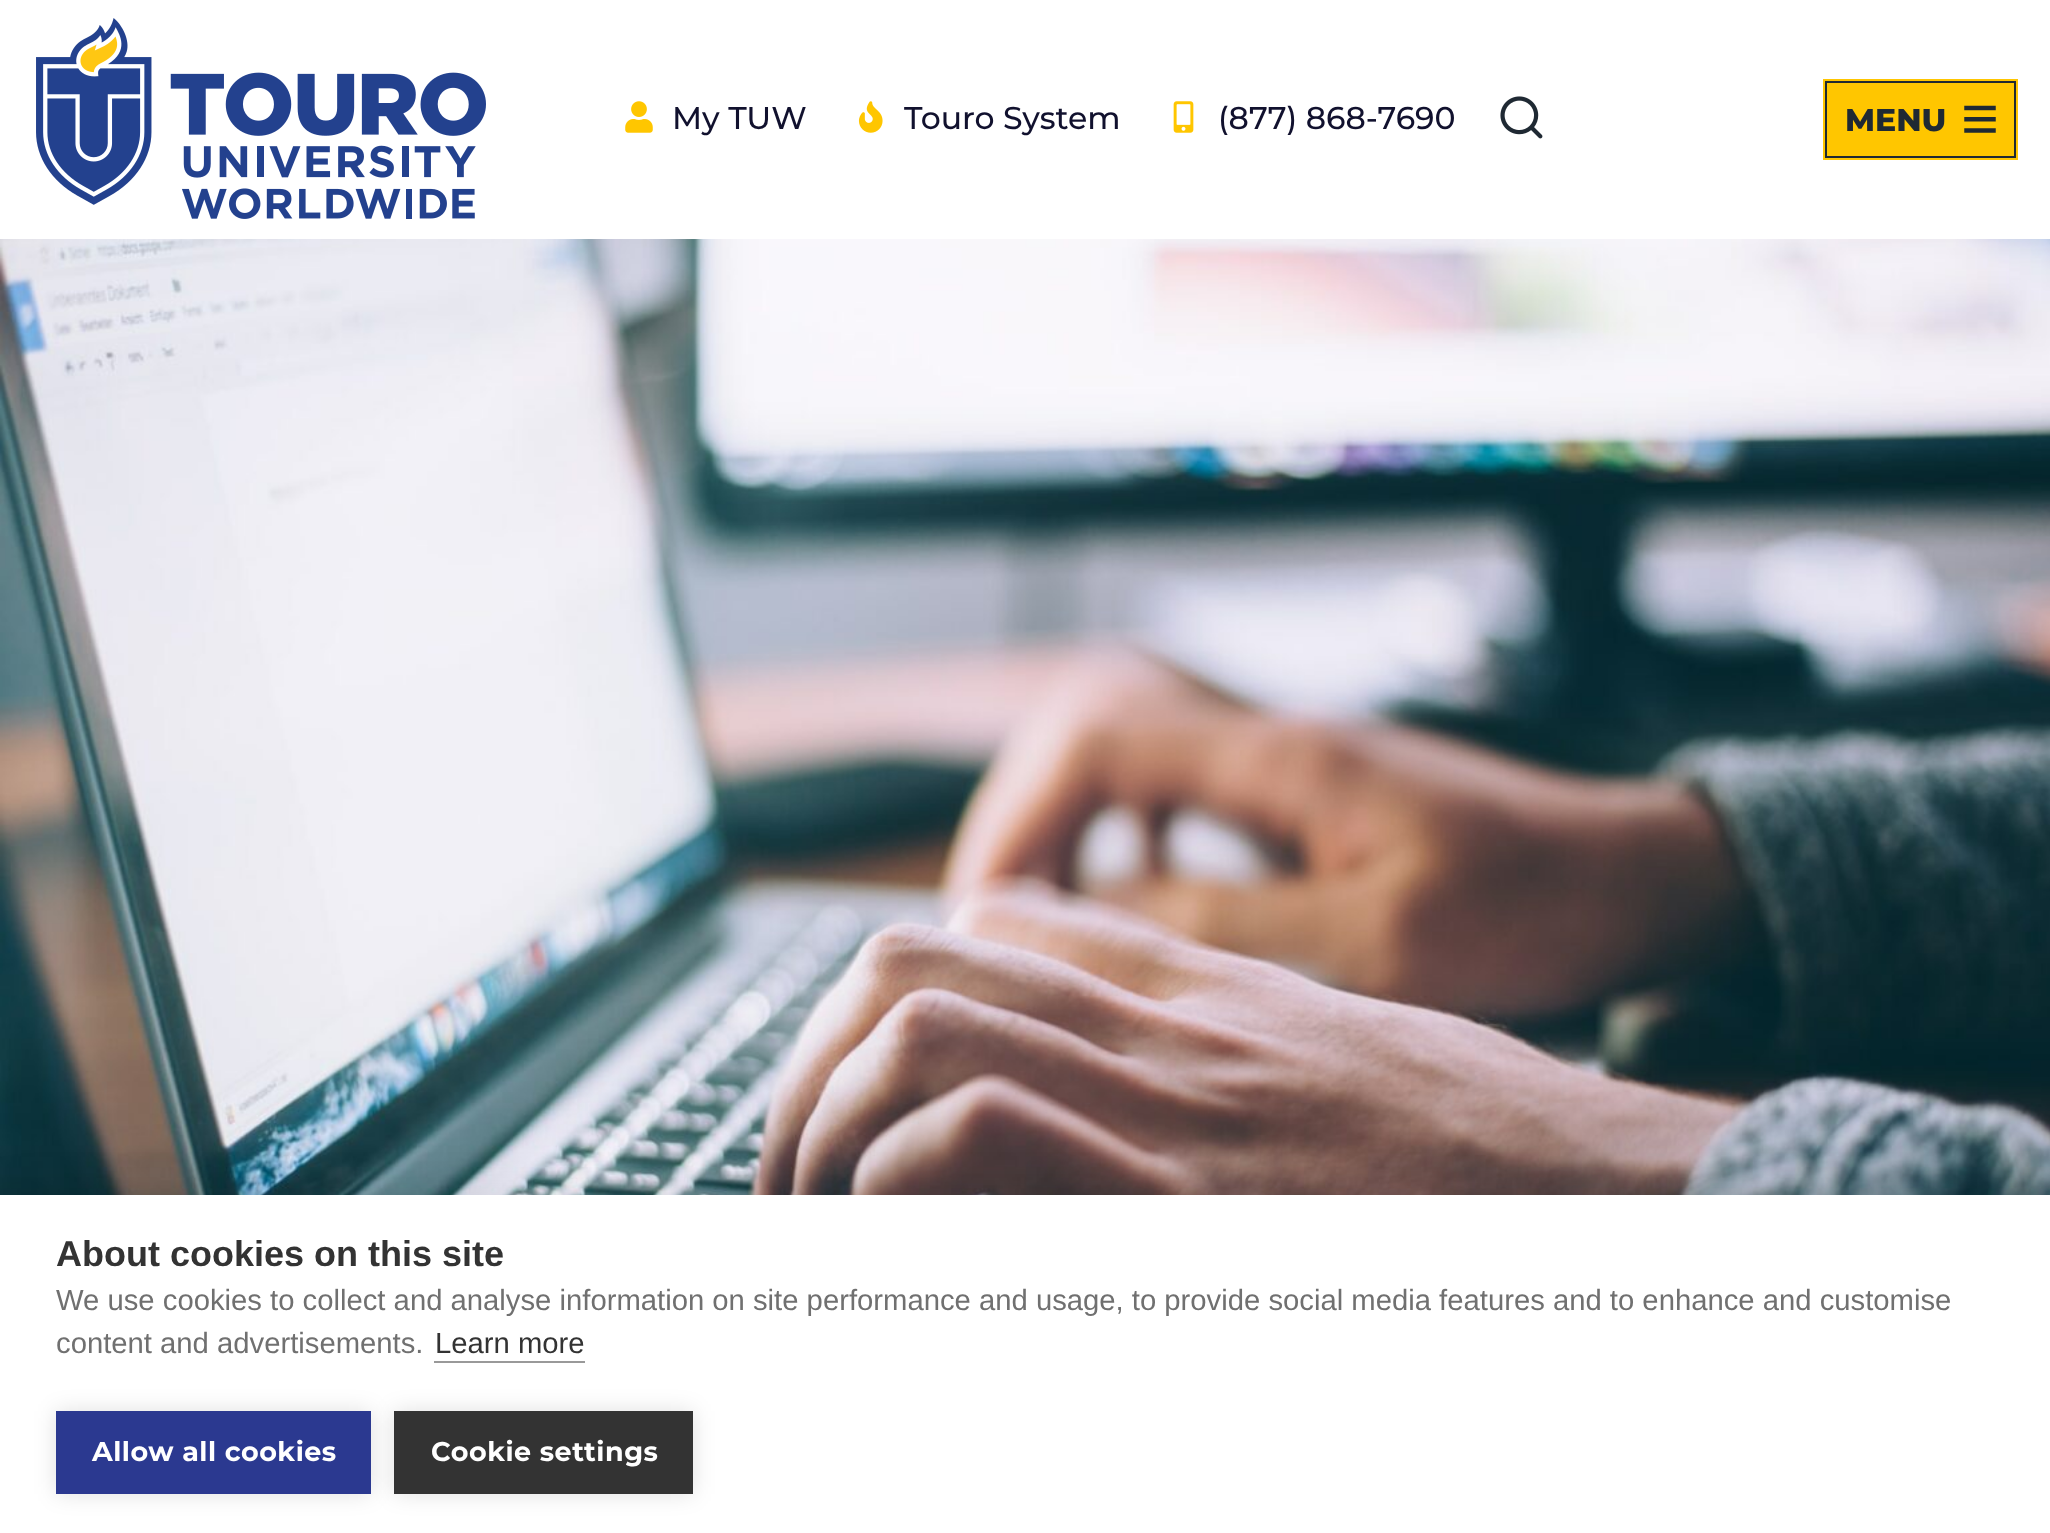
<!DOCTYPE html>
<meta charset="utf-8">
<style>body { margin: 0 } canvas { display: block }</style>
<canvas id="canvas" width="2050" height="1533"></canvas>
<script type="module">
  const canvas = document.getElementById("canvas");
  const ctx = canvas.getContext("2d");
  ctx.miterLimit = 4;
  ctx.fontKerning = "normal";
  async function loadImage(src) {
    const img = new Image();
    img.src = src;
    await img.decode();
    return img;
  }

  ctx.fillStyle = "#ffffff";
  ctx.fillRect(0, 0, 2050, 1533);
  ctx.drawImage(await loadImage("img1.png"), 36, 18, 450, 201);
  ctx.drawImage(await loadImage("img2.png"), 625, 101, 28, 32);
  ctx.font = "500 31.5px Montserrat";
  ctx.fillStyle = "#11112e";
  ctx.fillText("My TUW", 672, 129);
  ctx.drawImage(await loadImage("img3.png"), 858, 101, 25, 32);
  ctx.fillText("Touro System", 904, 129);
  ctx.drawImage(await loadImage("img4.png"), 1173, 101, 21, 32);
  ctx.fillText("(877) 868-7690", 1218, 129);
  ctx.drawImage(await loadImage("img5.png"), 1500, 96, 43, 43);
  ctx.strokeStyle = "#ffc600";
  ctx.lineWidth = 2;
  ctx.strokeRect(1824, 80, 193, 79);
  ctx.fillStyle = "#ffc600";
  ctx.beginPath();
  ctx.rect(1826, 82, 189, 75);
  ctx.fill();
  ctx.strokeStyle = "#1f2933";
  ctx.stroke();
  ctx.font = "800 31.5px Montserrat";
  ctx.fillStyle = "#1f2933";
  ctx.fillText("MENU", 1845, 131);
  ctx.drawImage(await loadImage("img6.png"), 1964, 105, 32, 28);
  ctx.drawImage(await loadImage("img7.png"), 0, 239, 2050, 956);
  ctx.fillStyle = "rgba(0, 0, 0, 0.1)";
  ctx.filter = "blur(22.5px)";
  ctx.beginPath();
  ctx.rect(0, 1195, 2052, 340);
  ctx.fill();
  ctx.filter = "none";
  ctx.fillStyle = "#ffffff";
  ctx.fillRect(0, 1195, 2050, 338);
  ctx.font = "bold 36px Liberation Sans";
  ctx.fillStyle = "#333333";
  ctx.fillText("About cookies on this site", 56, 1266);
  ctx.font = "29.25px Liberation Sans";
  ctx.fillStyle = "#707070";
  ctx.fillText("We use cookies to collect and analyse information on site performance and usage, to provide social media features and to enhance and customise", 56, 1310);
  ctx.fillText("content and advertisements.", 56, 1353);
  ctx.fillStyle = "#333333";
  ctx.fillText("Learn more", 435, 1353);
  ctx.fillStyle = "#999999";
  ctx.fillRect(434, 1361, 151, 2);
  ctx.fillStyle = "rgba(0, 0, 0, 0.12)";
  ctx.filter = "blur(11px)";
  ctx.beginPath();
  ctx.rect(56, 1411, 315, 83);
  ctx.fill();
  ctx.filter = "none";
  ctx.fillStyle = "#2b3990";
  ctx.fillRect(56, 1411, 315, 83);
  ctx.letterSpacing = "0.5px";
  ctx.font = "bold 27px Montserrat";
  ctx.fillStyle = "#ffffff";
  ctx.fillText("Allow all cookies", 92, 1461);
  ctx.fillStyle = "rgba(0, 0, 0, 0.12)";
  ctx.filter = "blur(11px)";
  ctx.beginPath();
  ctx.rect(394, 1411, 299, 83);
  ctx.fill();
  ctx.filter = "none";
  ctx.fillStyle = "#333333";
  ctx.fillRect(394, 1411, 299, 83);
  ctx.fillStyle = "#ffffff";
  ctx.fillText("Cookie settings", 431, 1461);
</script>
